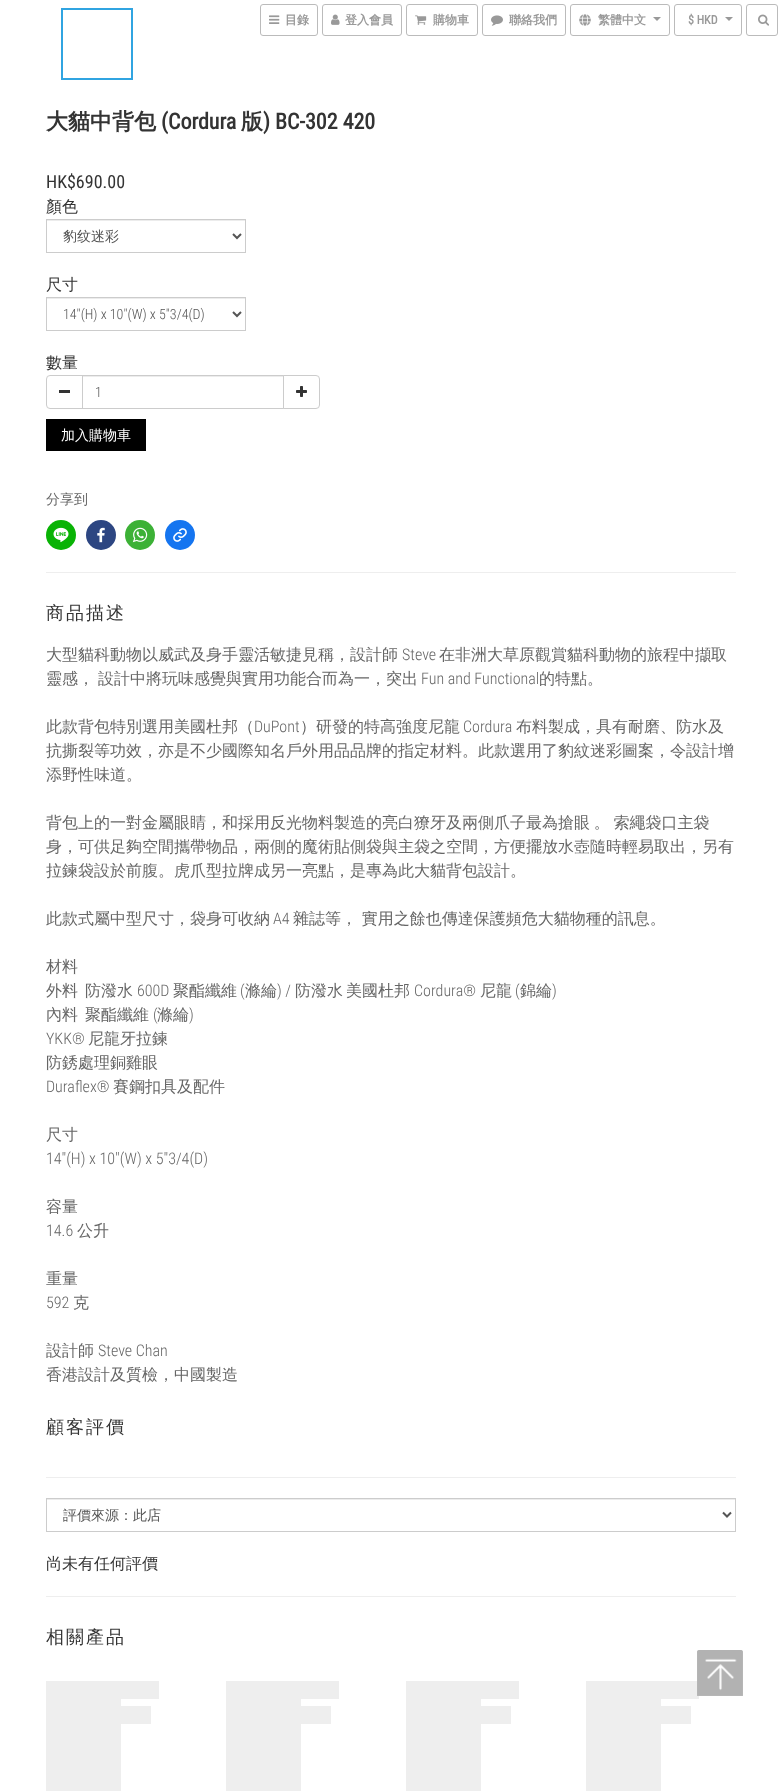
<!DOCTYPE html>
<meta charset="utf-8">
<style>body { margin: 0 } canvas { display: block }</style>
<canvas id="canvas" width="782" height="1791"></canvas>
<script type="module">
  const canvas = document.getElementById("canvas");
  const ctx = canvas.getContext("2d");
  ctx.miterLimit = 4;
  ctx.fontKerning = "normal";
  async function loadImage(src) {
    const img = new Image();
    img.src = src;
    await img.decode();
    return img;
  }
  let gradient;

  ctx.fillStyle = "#ffffff";
  ctx.fillRect(0, 0, 782, 1791);
  ctx.beginPath();
  ctx.roundRect(260.5, 4.5, 57, 31, 2.5);
  ctx.strokeStyle = "#bbbbbb";
  ctx.stroke();
  ctx.drawImage(await loadImage("img1.png"), 269, 15, 11, 9);
  ctx.font = "bold 12px WenQuanYi Zen Hei";
  ctx.fillStyle = "#999999";
  ctx.fillText("目錄", 285, 24);
  ctx.beginPath();
  ctx.roundRect(322.5, 4.5, 79, 31, 2.5);
  ctx.stroke();
  ctx.drawImage(await loadImage("img2.png"), 331, 14, 9, 11);
  ctx.fillText("登入會員", 345, 24);
  ctx.beginPath();
  ctx.roundRect(406.5, 4.5, 71, 31, 2.5);
  ctx.stroke();
  ctx.drawImage(await loadImage("img3.png"), 415, 15, 12, 10);
  ctx.fillText("購物車", 433, 24);
  ctx.beginPath();
  ctx.roundRect(482.5, 4.5, 83, 31, 2.5);
  ctx.stroke();
  ctx.drawImage(await loadImage("img4.png"), 491, 15, 12, 11);
  ctx.fillText("聯絡我們", 509, 24);
  ctx.beginPath();
  ctx.roundRect(570.5, 4.5, 99, 31, 2.5);
  ctx.stroke();
  ctx.drawImage(await loadImage("img5.png"), 579, 14, 12, 12);
  ctx.fillText("繁體中文", 598, 24);
  ctx.beginPath();
  ctx.moveTo(653, 17);
  ctx.lineTo(661, 17);
  ctx.lineTo(657, 21);
  ctx.closePath();
  ctx.fill();
  ctx.beginPath();
  ctx.roundRect(674.5, 4.5, 67, 31, 2.5);
  ctx.stroke();
  ctx.font = "bold 12px Roboto Condensed";
  ctx.fillText("$ HKD", 688, 24);
  ctx.beginPath();
  ctx.moveTo(725, 17);
  ctx.lineTo(733, 17);
  ctx.lineTo(729, 21);
  ctx.closePath();
  ctx.fill();
  ctx.beginPath();
  ctx.roundRect(746.5, 4.5, 31, 31, 2.5);
  ctx.stroke();
  ctx.drawImage(await loadImage("img6.png"), 758, 14, 11, 12);
  ctx.strokeStyle = "#30a4e1";
  ctx.lineWidth = 2;
  ctx.strokeRect(62, 9, 70, 70);
  ctx.font = "bold 22px WenQuanYi Zen Hei";
  ctx.fillStyle = "#333333";
  ctx.fillText("大貓中背包", 46, 129);
  ctx.font = "bold 22px Roboto Condensed";
  ctx.fillText("(Cordura", 161, 129);
  ctx.font = "bold 22px WenQuanYi Zen Hei";
  ctx.fillText("版", 241, 129);
  ctx.font = "bold 22px Roboto Condensed";
  ctx.fillText(") BC-302 420", 263, 129);
  ctx.font = "18px Roboto Condensed";
  ctx.fillText("HK$690.00", 46, 188);
  ctx.font = "500 16px WenQuanYi Zen Hei";
  ctx.fillText("顏色", 46, 212);
  ctx.fillStyle = "#ececec";
  ctx.fillRect(47, 220, 198, 1);
  ctx.strokeStyle = "#cccccc";
  ctx.lineWidth = 1;
  ctx.strokeRect(46.5, 219.5, 199, 33);
  ctx.beginPath();
  ctx.moveTo(233, 234);
  ctx.lineTo(237, 238);
  ctx.lineTo(241, 234);
  ctx.strokeStyle = "#555555";
  ctx.lineWidth = 2;
  ctx.stroke();
  ctx.font = "500 14px WenQuanYi Zen Hei";
  ctx.fillStyle = "#555555";
  ctx.fillText("豹纹迷彩", 63, 241);
  ctx.font = "500 16px WenQuanYi Zen Hei";
  ctx.fillStyle = "#333333";
  ctx.fillText("尺寸", 46, 290);
  ctx.fillStyle = "#ececec";
  ctx.fillRect(47, 298, 198, 1);
  ctx.strokeStyle = "#cccccc";
  ctx.lineWidth = 1;
  ctx.strokeRect(46.5, 297.5, 199, 33);
  ctx.beginPath();
  ctx.moveTo(233, 312);
  ctx.lineTo(237, 316);
  ctx.lineTo(241, 312);
  ctx.strokeStyle = "#555555";
  ctx.lineWidth = 2;
  ctx.stroke();
  ctx.font = "300 14px Roboto Condensed";
  ctx.fillStyle = "#555555";
  ctx.fillText("14\"(H) x 10\"(W) x 5\"3/4(D)", 63, 319);
  ctx.font = "500 16px WenQuanYi Zen Hei";
  ctx.fillStyle = "#333333";
  ctx.fillText("數量", 46, 368);
  ctx.beginPath();
  ctx.roundRect(46.5, 375.5, 36, 33, [3.5, 0, 0, 3.5]);
  ctx.strokeStyle = "#cccccc";
  ctx.lineWidth = 1;
  ctx.stroke();
  ctx.fillRect(59, 390, 11, 3);
  ctx.fillStyle = "#ececec";
  ctx.fillRect(83, 376, 200, 1);
  ctx.strokeRect(82.5, 375.5, 201, 33);
  ctx.font = "300 14px Roboto Condensed";
  ctx.fillStyle = "#555555";
  ctx.fillText("1", 95, 397);
  ctx.fillStyle = "#ffffff";
  ctx.beginPath();
  ctx.roundRect(283.5, 375.5, 36, 33, [0, 3.5, 3.5, 0]);
  ctx.fill();
  ctx.stroke();
  ctx.drawImage(await loadImage("img7.png"), 296, 386, 11, 11);
  ctx.fillStyle = "#000000";
  ctx.fillRect(46, 419, 100, 32);
  ctx.font = "500 14px WenQuanYi Zen Hei";
  ctx.fillStyle = "#ffffff";
  ctx.fillText("加入購物車", 61, 440);
  ctx.fillStyle = "#666666";
  ctx.fillText("分享到", 46, 504);
  ctx.fillStyle = "#09b305";
  ctx.beginPath();
  ctx.arc(61, 535, 15, 0, Math.PI * 2);
  ctx.fill();
  ctx.drawImage(await loadImage("img8.png"), 53, 527, 16, 16);
  ctx.fillStyle = "#2d4682";
  ctx.beginPath();
  ctx.arc(101, 535, 15, 0, Math.PI * 2);
  ctx.fill();
  ctx.drawImage(await loadImage("img9.png"), 97, 527, 8, 16);
  ctx.fillStyle = "#3cb136";
  ctx.beginPath();
  ctx.arc(140, 535, 15, 0, Math.PI * 2);
  ctx.fill();
  ctx.drawImage(await loadImage("img10.png"), 132, 527, 16, 16);
  ctx.fillStyle = "#1575f0";
  ctx.beginPath();
  ctx.arc(180, 535, 15, 0, Math.PI * 2);
  ctx.fill();
  ctx.drawImage(await loadImage("img11.png"), 173, 528, 14, 14);
  ctx.fillStyle = "#eeeeee";
  ctx.fillRect(46, 572, 690, 1);
  ctx.letterSpacing = "2px";
  ctx.font = "500 18px WenQuanYi Zen Hei";
  ctx.fillStyle = "#333333";
  ctx.fillText("商品描述", 46, 619);
  ctx.letterSpacing = "0px";
  ctx.font = "500 16px WenQuanYi Zen Hei";
  ctx.fillStyle = "#666666";
  ctx.fillText("大型貓科動物以威武及身手靈活敏捷見稱，設計師", 46, 660);
  ctx.font = "300 16px Roboto Condensed";
  ctx.fillText("Steve", 402, 660);
  ctx.font = "500 16px WenQuanYi Zen Hei";
  ctx.fillText("在非洲大草原觀賞貓科動物的旅程中擷取", 439, 660);
  ctx.fillText("靈感，", 46, 684);
  ctx.fillText("設計中將玩味感覺與實用功能合而為一，突出", 98, 684);
  ctx.font = "300 16px Roboto Condensed";
  ctx.fillText("Fun and Functional", 421, 684);
  ctx.font = "500 16px WenQuanYi Zen Hei";
  ctx.fillText("的特點。", 539, 684);
  ctx.fillText("此款背包特別選用美國杜邦（", 46, 732);
  ctx.font = "300 16px Roboto Condensed";
  ctx.fillText("DuPont", 254, 732);
  ctx.font = "500 16px WenQuanYi Zen Hei";
  ctx.fillText("）研發的特高強度尼龍", 300, 732);
  ctx.font = "300 16px Roboto Condensed";
  ctx.fillText("Cordura", 463, 732);
  ctx.font = "500 16px WenQuanYi Zen Hei";
  ctx.fillText("布料製成，具有耐磨、防水及", 516, 732);
  ctx.fillText("抗撕裂等功效，亦是不少國際知名戶外用品品牌的指定材料。此款選用了豹紋迷彩圖案，令設計增", 46, 756);
  ctx.fillText("添野性味道。", 46, 780);
  ctx.wordSpacing = "-1px";
  ctx.fillText("背包上的一對金屬眼睛，和採用反光物料製造的亮白獠牙及兩側爪子最為搶眼 。 索繩袋口主袋", 46, 828);
  ctx.wordSpacing = "0px";
  ctx.fillText("身，可供足夠空間攜帶物品，兩側的魔術貼側袋與主袋之空間，方便擺放水壺隨時輕易取出，另有", 46, 852);
  ctx.fillText("拉鍊袋設於前腹。虎爪型拉牌成另一亮點，是專為此大貓背包設計。", 46, 876);
  ctx.fillText("此款式屬中型尺寸，袋身可收納", 46, 924);
  ctx.font = "300 16px Roboto Condensed";
  ctx.fillText("A4", 273, 924);
  ctx.font = "500 16px WenQuanYi Zen Hei";
  ctx.fillText("雜誌等， 實用之餘也傳達保護頻危大貓物種的訊息。", 293, 924);
  ctx.fillText("材料", 46, 972);
  ctx.fillText("外料", 46, 996);
  ctx.fillText("防潑水", 85, 996);
  ctx.font = "300 16px Roboto Condensed";
  ctx.fillText("600D", 137, 996);
  ctx.font = "500 16px WenQuanYi Zen Hei";
  ctx.fillText("聚酯纖維", 173, 996);
  ctx.font = "300 16px Roboto Condensed";
  ctx.fillText("(", 240, 996);
  ctx.font = "500 16px WenQuanYi Zen Hei";
  ctx.fillText("滌綸", 245, 996);
  ctx.font = "300 16px Roboto Condensed";
  ctx.fillText(") /", 277, 996);
  ctx.font = "500 16px WenQuanYi Zen Hei";
  ctx.fillText("防潑水", 295, 996);
  ctx.fillText("美國杜邦", 346, 996);
  ctx.font = "300 16px Roboto Condensed";
  ctx.fillText("Cordura®", 414, 996);
  ctx.font = "500 16px WenQuanYi Zen Hei";
  ctx.fillText("尼龍", 480, 996);
  ctx.font = "300 16px Roboto Condensed";
  ctx.fillText("(", 515, 996);
  ctx.font = "500 16px WenQuanYi Zen Hei";
  ctx.fillText("錦綸", 520, 996);
  ctx.font = "300 16px Roboto Condensed";
  ctx.fillText(")", 552, 996);
  ctx.font = "500 16px WenQuanYi Zen Hei";
  ctx.fillText("內料", 46, 1020);
  ctx.fillText("聚酯纖維", 85, 1020);
  ctx.font = "300 16px Roboto Condensed";
  ctx.fillText("(", 153, 1020);
  ctx.font = "500 16px WenQuanYi Zen Hei";
  ctx.fillText("滌綸", 157, 1020);
  ctx.font = "300 16px Roboto Condensed";
  ctx.fillText(")", 189, 1020);
  ctx.fillText("YKK®", 46, 1044);
  ctx.font = "500 16px WenQuanYi Zen Hei";
  ctx.fillText("尼龍牙拉鍊", 88, 1044);
  ctx.fillText("防銹處理銅雞眼", 46, 1068);
  ctx.font = "300 16px Roboto Condensed";
  ctx.fillText("Duraflex®", 46, 1092);
  ctx.font = "500 16px WenQuanYi Zen Hei";
  ctx.fillText("賽鋼扣具及配件", 113, 1092);
  ctx.fillText("尺寸", 46, 1140);
  ctx.font = "300 16px Roboto Condensed";
  ctx.fillText("14\"(H) x 10\"(W) x 5\"3/4(D)", 46, 1164);
  ctx.font = "500 16px WenQuanYi Zen Hei";
  ctx.fillText("容量", 46, 1212);
  ctx.font = "300 16px Roboto Condensed";
  ctx.fillText("14.6", 46, 1236);
  ctx.font = "500 16px WenQuanYi Zen Hei";
  ctx.fillText("公升", 77, 1236);
  ctx.fillText("重量", 46, 1284);
  ctx.font = "300 16px Roboto Condensed";
  ctx.fillText("592", 46, 1308);
  ctx.font = "500 16px WenQuanYi Zen Hei";
  ctx.fillText("克", 73, 1308);
  ctx.fillText("設計師", 46, 1356);
  ctx.font = "300 16px Roboto Condensed";
  ctx.fillText("Steve Chan", 98, 1356);
  ctx.font = "500 16px WenQuanYi Zen Hei";
  ctx.fillText("香港設計及質檢，中國製造", 46, 1380);
  ctx.letterSpacing = "2px";
  ctx.font = "500 18px WenQuanYi Zen Hei";
  ctx.fillStyle = "#333333";
  ctx.fillText("顧客評價", 46, 1433);
  ctx.fillStyle = "#eeeeee";
  ctx.fillRect(46, 1477, 690, 1);
  ctx.fillStyle = "#ececec";
  ctx.fillRect(47, 1499, 688, 1);
  ctx.strokeRect(46.5, 1498.5, 689, 33);
  ctx.beginPath();
  ctx.moveTo(723, 1512.5);
  ctx.lineTo(727, 1516.5);
  ctx.lineTo(731, 1512.5);
  ctx.strokeStyle = "#555555";
  ctx.lineWidth = 2;
  ctx.stroke();
  ctx.letterSpacing = "0px";
  ctx.font = "500 14px WenQuanYi Zen Hei";
  ctx.fillStyle = "#555555";
  ctx.fillText("評價來源：此店", 63, 1520);
  ctx.font = "500 16px WenQuanYi Zen Hei";
  ctx.fillStyle = "#333333";
  ctx.fillText("尚未有任何評價", 46, 1569);
  ctx.fillStyle = "#eeeeee";
  ctx.fillRect(46, 1596, 690, 1);
  ctx.letterSpacing = "2px";
  ctx.font = "500 18px WenQuanYi Zen Hei";
  ctx.fillStyle = "#333333";
  ctx.fillText("相關產品", 46, 1643);
  gradient = ctx.createLinearGradient(-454, 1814, 546, 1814);
  gradient.addColorStop(0.1, "#eeeeee");
  gradient.addColorStop(0.3, "#dfdfdf");
  gradient.addColorStop(0.5, "#eeeeee");
  ctx.fillStyle = gradient;
  ctx.fillRect(46, 1681, 75, 110);
  gradient = ctx.createLinearGradient(-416, 1690, 584, 1690);
  gradient.addColorStop(0.1, "#eeeeee");
  gradient.addColorStop(0.3, "#dfdfdf");
  gradient.addColorStop(0.5, "#eeeeee");
  ctx.fillStyle = gradient;
  ctx.fillRect(121, 1681, 38, 18);
  gradient = ctx.createLinearGradient(-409, 1715, 591, 1715);
  gradient.addColorStop(0.1, "#eeeeee");
  gradient.addColorStop(0.3, "#dfdfdf");
  gradient.addColorStop(0.5, "#eeeeee");
  ctx.fillStyle = gradient;
  ctx.fillRect(121, 1706, 30, 18);
  gradient = ctx.createLinearGradient(-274, 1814, 726, 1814);
  gradient.addColorStop(0.1, "#eeeeee");
  gradient.addColorStop(0.3, "#dfdfdf");
  gradient.addColorStop(0.5, "#eeeeee");
  ctx.fillStyle = gradient;
  ctx.fillRect(226, 1681, 75, 110);
  gradient = ctx.createLinearGradient(-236, 1690, 764, 1690);
  gradient.addColorStop(0.1, "#eeeeee");
  gradient.addColorStop(0.3, "#dfdfdf");
  gradient.addColorStop(0.5, "#eeeeee");
  ctx.fillStyle = gradient;
  ctx.fillRect(301, 1681, 38, 18);
  gradient = ctx.createLinearGradient(-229, 1715, 771, 1715);
  gradient.addColorStop(0.1, "#eeeeee");
  gradient.addColorStop(0.3, "#dfdfdf");
  gradient.addColorStop(0.5, "#eeeeee");
  ctx.fillStyle = gradient;
  ctx.fillRect(301, 1706, 30, 18);
  gradient = ctx.createLinearGradient(-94, 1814, 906, 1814);
  gradient.addColorStop(0.1, "#eeeeee");
  gradient.addColorStop(0.3, "#dfdfdf");
  gradient.addColorStop(0.5, "#eeeeee");
  ctx.fillStyle = gradient;
  ctx.fillRect(406, 1681, 75, 110);
  gradient = ctx.createLinearGradient(-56, 1690, 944, 1690);
  gradient.addColorStop(0.1, "#eeeeee");
  gradient.addColorStop(0.3, "#dfdfdf");
  gradient.addColorStop(0.5, "#eeeeee");
  ctx.fillStyle = gradient;
  ctx.fillRect(481, 1681, 38, 18);
  gradient = ctx.createLinearGradient(-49, 1715, 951, 1715);
  gradient.addColorStop(0.1, "#eeeeee");
  gradient.addColorStop(0.3, "#dfdfdf");
  gradient.addColorStop(0.5, "#eeeeee");
  ctx.fillStyle = gradient;
  ctx.fillRect(481, 1706, 30, 18);
  gradient = ctx.createLinearGradient(86, 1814, 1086, 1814);
  gradient.addColorStop(0.1, "#eeeeee");
  gradient.addColorStop(0.3, "#dfdfdf");
  gradient.addColorStop(0.5, "#eeeeee");
  ctx.fillStyle = gradient;
  ctx.fillRect(586, 1681, 75, 110);
  gradient = ctx.createLinearGradient(124, 1690, 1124, 1690);
  gradient.addColorStop(0.1, "#eeeeee");
  gradient.addColorStop(0.3, "#dfdfdf");
  gradient.addColorStop(0.5, "#eeeeee");
  ctx.fillStyle = gradient;
  ctx.fillRect(661, 1681, 38, 18);
  gradient = ctx.createLinearGradient(131, 1715, 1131, 1715);
  gradient.addColorStop(0.1, "#eeeeee");
  gradient.addColorStop(0.3, "#dfdfdf");
  gradient.addColorStop(0.5, "#eeeeee");
  ctx.fillStyle = gradient;
  ctx.fillRect(661, 1706, 30, 18);
  ctx.drawImage(await loadImage("img12.png"), 697, 1650, 46, 46);
</script>
